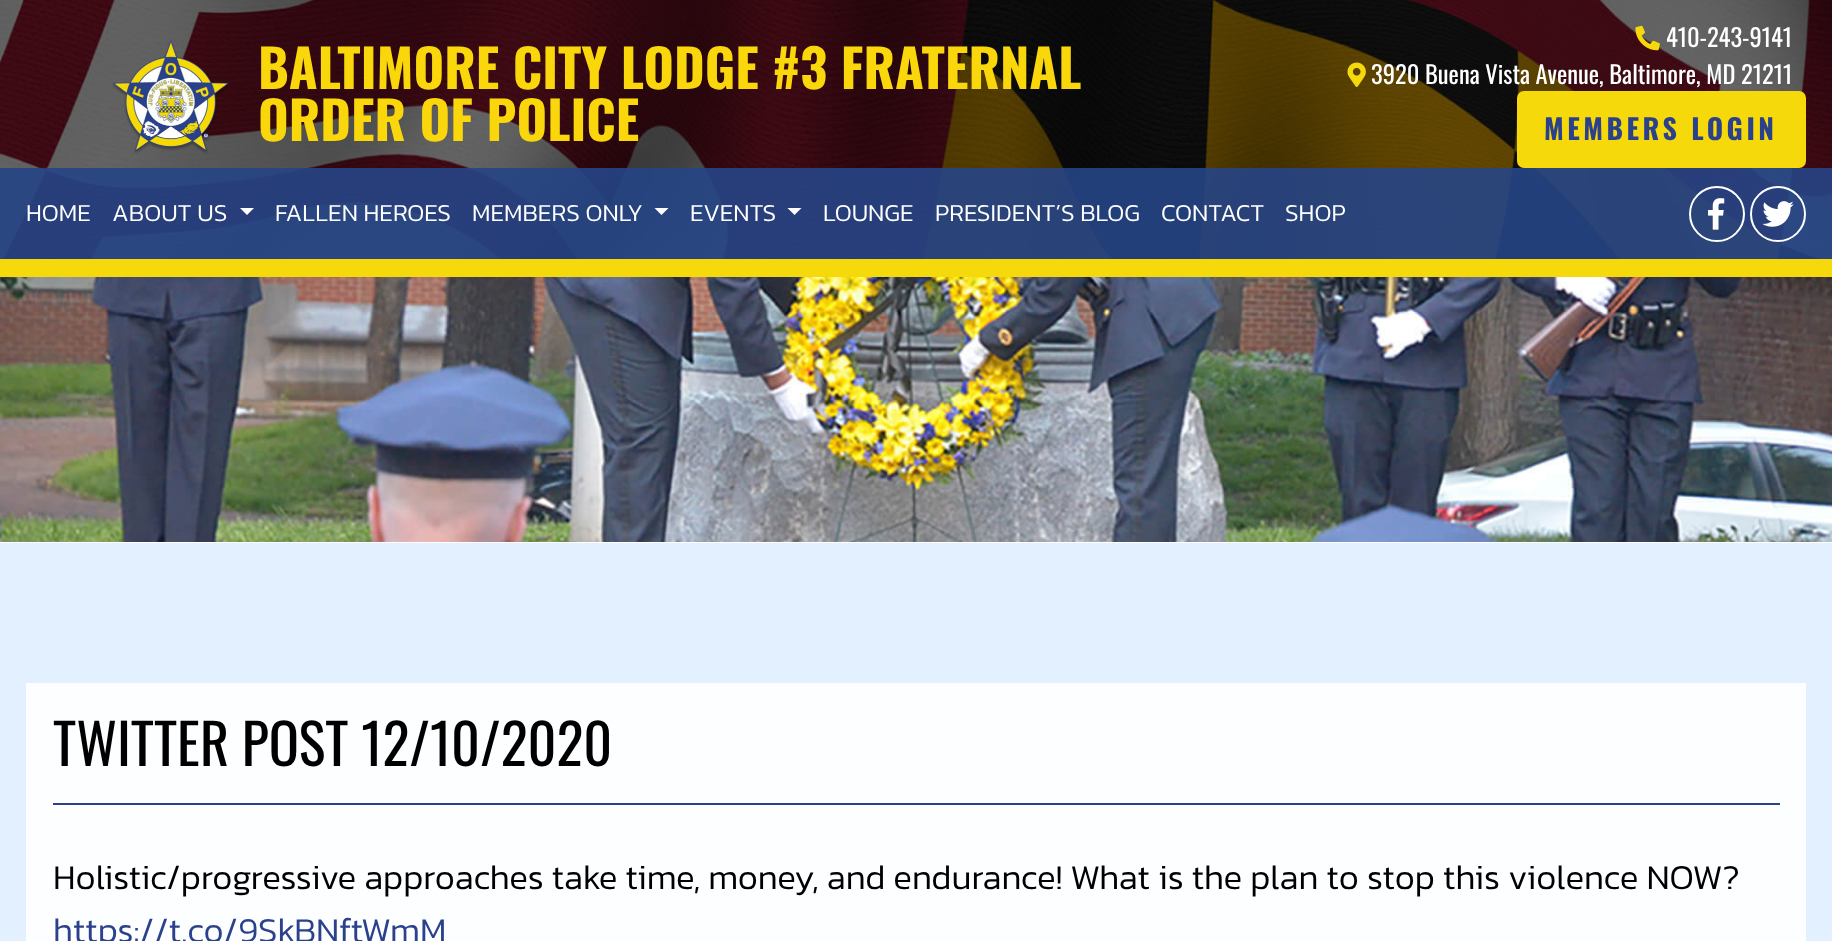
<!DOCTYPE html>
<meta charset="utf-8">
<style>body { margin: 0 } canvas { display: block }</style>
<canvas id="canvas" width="1832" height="941"></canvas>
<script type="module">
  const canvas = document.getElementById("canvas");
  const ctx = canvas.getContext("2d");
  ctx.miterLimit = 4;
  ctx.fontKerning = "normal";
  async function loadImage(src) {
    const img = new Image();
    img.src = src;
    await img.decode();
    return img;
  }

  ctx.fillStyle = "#ffffff";
  ctx.fillRect(0, 0, 1832, 941);
  ctx.fillStyle = "#000000";
  ctx.fillRect(0, 0, 1832, 259);
  ctx.fillStyle = "#f5d90b";
  ctx.fillRect(0, 259, 1832, 18);
  ctx.drawImage(await loadImage("img1.png"), 0, 0, 1832, 259);
  ctx.drawImage(await loadImage("img2.png"), 112, 40, 117, 114);
  ctx.font = "bold 52.5px Oswald";
  ctx.fillStyle = "#fad70a";
  ctx.fillText("BALTIMORE CITY LODGE #3 FRATERNAL", 258, 89);
  ctx.fillText("ORDER OF POLICE", 258, 141);
  ctx.drawImage(await loadImage("img3.png"), 1635, 25, 25, 26);
  ctx.font = "24.5px Oswald";
  ctx.fillStyle = "#ffffff";
  ctx.fillText("410-243-9141", 1666, 47);
  ctx.drawImage(await loadImage("img4.png"), 1347, 62, 19, 25);
  ctx.fillText("3920 Buena Vista Avenue, Baltimore, MD 21211", 1371, 84);
  ctx.fillStyle = "#f5d90b";
  ctx.beginPath();
  ctx.roundRect(1518, 92, 287, 75, 6);
  ctx.fill();
  ctx.strokeStyle = "#f5d90b";
  ctx.lineWidth = 2;
  ctx.stroke();
  ctx.letterSpacing = "3.5px";
  ctx.font = "bold 28px Oswald";
  ctx.fillStyle = "#2b418c";
  ctx.fillText("MEMBERS LOGIN", 1544, 140);
  ctx.fillStyle = "rgba(38, 69, 134, 0.9)";
  ctx.fillRect(0, 168, 1832, 91);
  ctx.letterSpacing = "0px";
  ctx.font = "300 24.5px Kanit";
  ctx.fillStyle = "#ffffff";
  ctx.fillText("HOME", 26, 221);
  ctx.fillText("ABOUT US", 112, 221);
  ctx.beginPath();
  ctx.moveTo(240, 208);
  ctx.lineTo(254, 208);
  ctx.lineTo(247, 215);
  ctx.closePath();
  ctx.fill();
  ctx.fillText("FALLEN HEROES", 275, 221);
  ctx.fillText("MEMBERS ONLY", 472, 221);
  ctx.beginPath();
  ctx.moveTo(654.5, 208);
  ctx.lineTo(668.5, 208);
  ctx.lineTo(661.5, 215);
  ctx.closePath();
  ctx.fill();
  ctx.fillText("EVENTS", 690, 221);
  ctx.beginPath();
  ctx.moveTo(787.5, 208);
  ctx.lineTo(801.5, 208);
  ctx.lineTo(794.5, 215);
  ctx.closePath();
  ctx.fill();
  ctx.fillText("LOUNGE", 823, 221);
  ctx.fillText("PRESIDENT’S BLOG", 935, 221);
  ctx.fillText("CONTACT", 1161, 221);
  ctx.fillText("SHOP", 1285, 221);
  ctx.beginPath();
  ctx.arc(1717, 214, 27, 0, Math.PI * 2);
  ctx.strokeStyle = "#ffffff";
  ctx.stroke();
  ctx.drawImage(await loadImage("img5.png"), 1708, 198, 17, 32);
  ctx.beginPath();
  ctx.arc(1778, 214, 27, 0, Math.PI * 2);
  ctx.stroke();
  ctx.drawImage(await loadImage("img6.png"), 1762, 201, 32, 26);
  ctx.drawImage(await loadImage("img7.png"), 0, 277, 1832, 265);
  ctx.fillStyle = "#e3f0ff";
  ctx.fillRect(0, 543, 1832, 398);
  ctx.fillStyle = "#fcfeff";
  ctx.fillRect(26, 683, 1780, 258);
  ctx.fillStyle = "#2b418c";
  ctx.fillRect(53, 803, 1727, 2);
  ctx.font = "56px Oswald";
  ctx.fillStyle = "#000000";
  ctx.fillText("TWITTER POST 12/10/2020", 53, 766);
  ctx.font = "300 35px Kanit";
  ctx.fillText("Holistic/progressive approaches take time, money, and endurance! What is the plan to stop this violence NOW?", 53, 889);
  ctx.fillStyle = "#2b418c";
  ctx.fillText("https://t.co/9SkBNftWmM", 53, 942);
</script>
